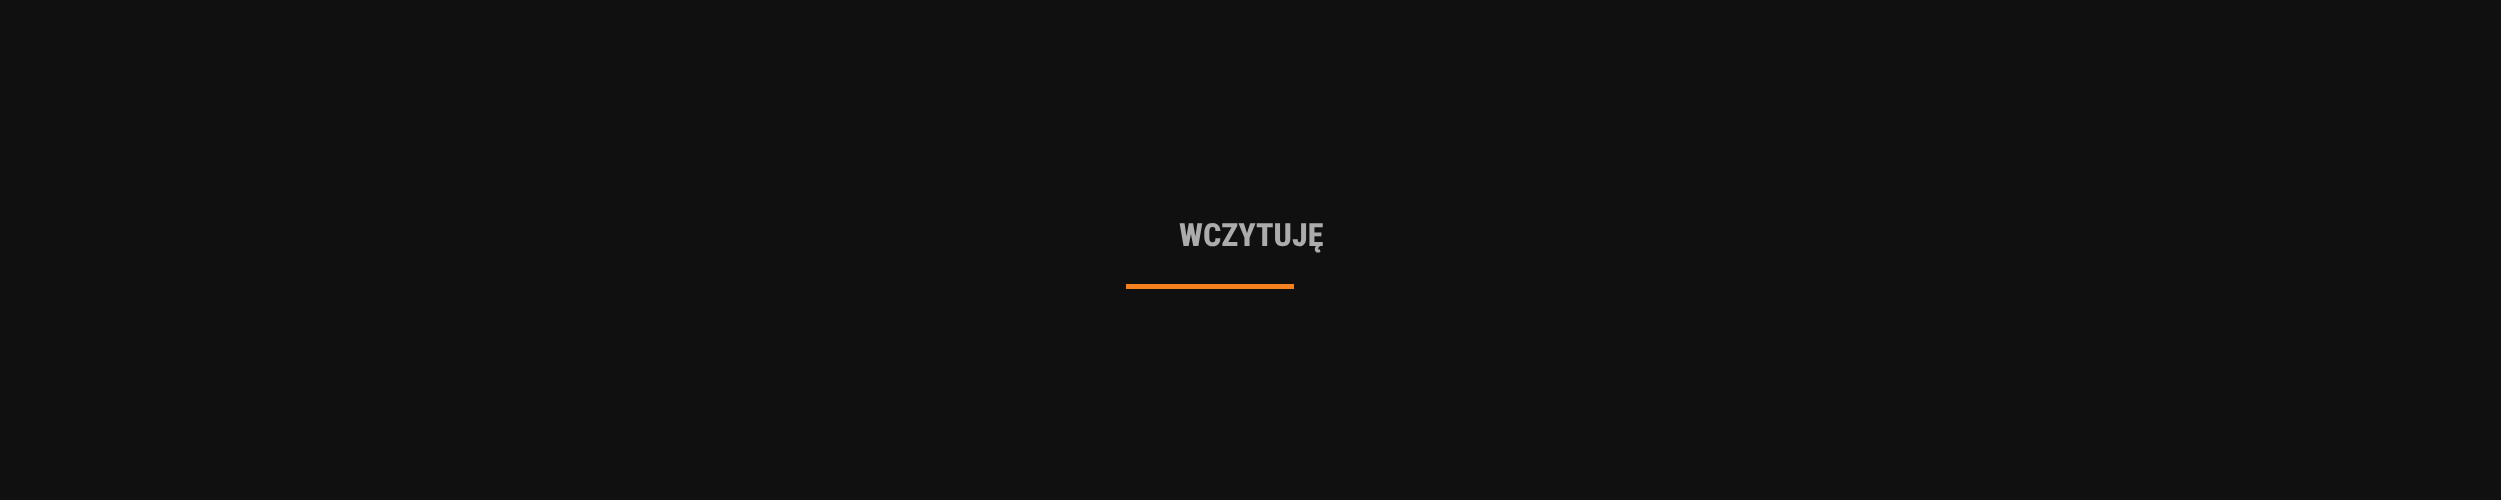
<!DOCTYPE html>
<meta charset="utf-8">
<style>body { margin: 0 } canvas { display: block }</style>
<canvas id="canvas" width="2501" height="500"></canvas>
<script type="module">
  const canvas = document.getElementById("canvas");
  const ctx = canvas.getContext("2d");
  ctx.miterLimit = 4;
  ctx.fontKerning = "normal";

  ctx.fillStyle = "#101010";
  ctx.fillRect(0, 0, 2501, 500);
  ctx.font = "800 32px Roboto Condensed";
  ctx.fillStyle = "#acacac";
  ctx.fillText("WCZYTUJĘ", 1179, 246);
  ctx.fillStyle = "#f6821f";
  ctx.fillRect(1126, 284, 168, 5);
</script>
